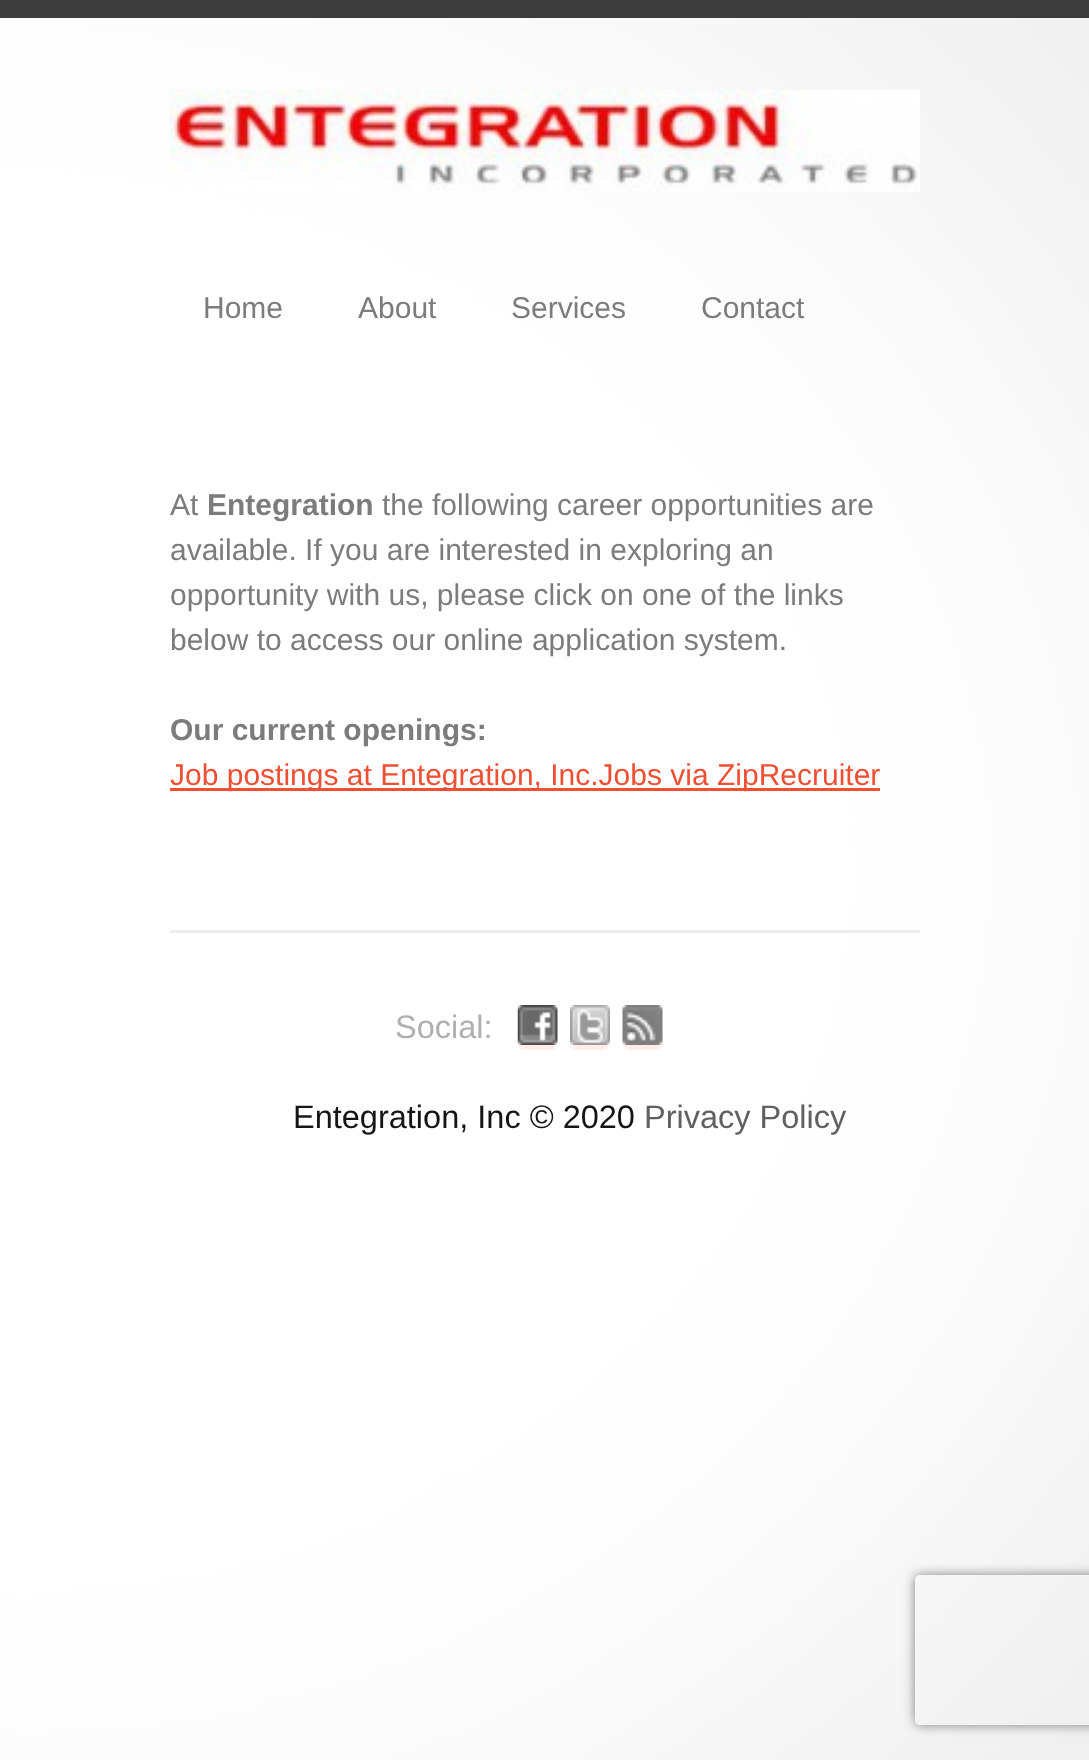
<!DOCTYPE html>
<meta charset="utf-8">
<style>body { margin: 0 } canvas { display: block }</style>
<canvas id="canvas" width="1089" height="1760"></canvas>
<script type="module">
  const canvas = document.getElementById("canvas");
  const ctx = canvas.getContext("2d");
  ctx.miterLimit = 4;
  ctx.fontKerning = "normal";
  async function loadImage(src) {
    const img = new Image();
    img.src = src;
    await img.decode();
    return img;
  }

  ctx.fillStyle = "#e9e9e9";
  ctx.fillRect(0, 0, 1089, 1760);
  ctx.drawImage(await loadImage("img1.png"), 0, 18, 1089, 1742);
  ctx.fillStyle = "#3c3c3c";
  ctx.fillRect(0, 0, 1089, 18);
  ctx.drawImage(await loadImage("img2.png"), 170, 90, 750, 102);
  ctx.font = "30px Liberation Sans";
  ctx.fillStyle = "#7c7c7c";
  ctx.fillText("Home", 203, 318);
  ctx.fillText("About", 358, 318);
  ctx.fillText("Services", 511, 318);
  ctx.fillText("Contact", 701, 318);
  ctx.fillText("At", 170, 515);
  ctx.font = "bold 30px Liberation Sans";
  ctx.fillText("Entegration", 207, 515);
  ctx.font = "30px Liberation Sans";
  ctx.fillText("the following career opportunities are", 382, 515);
  ctx.fillText("available. If you are interested in exploring an", 170, 560);
  ctx.fillText("opportunity with us, please click on one of the links", 170, 605);
  ctx.fillText("below to access our online application system.", 170, 650);
  ctx.font = "bold 30px Liberation Sans";
  ctx.fillText("Our current openings:", 170, 740);
  ctx.fillStyle = "#ef4f33";
  ctx.fillRect(170, 788, 710, 3);
  ctx.font = "30px Liberation Sans";
  ctx.fillText("Job postings at Entegration, Inc.Jobs via ZipRecruiter", 170, 785);
  ctx.fillStyle = "#ececec";
  ctx.fillRect(170, 930, 750, 3);
  ctx.font = "32.5px Liberation Sans";
  ctx.fillStyle = "#b0afae";
  ctx.fillText("Social:", 395, 1038);
  ctx.drawImage(await loadImage("img3.png"), 517, 1031, 41, 19);
  ctx.drawImage(await loadImage("img4.png"), 517, 1005, 41, 40);
  ctx.drawImage(await loadImage("img5.png"), 570, 1039, 40, 11);
  ctx.drawImage(await loadImage("img6.png"), 570, 1005, 40, 40);
  ctx.drawImage(await loadImage("img7.png"), 622, 1031, 41, 19);
  ctx.drawImage(await loadImage("img8.png"), 622, 1005, 41, 40);
  ctx.fillStyle = "#161616";
  ctx.fillText("Entegration, Inc © 2020", 293, 1128);
  ctx.fillStyle = "#606060";
  ctx.fillText("Privacy Policy", 644, 1128);
  ctx.save();
  ctx.beginPath();
  ctx.moveTo(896, 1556);
  ctx.lineTo(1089, 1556);
  ctx.lineTo(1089, 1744);
  ctx.lineTo(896, 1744);
  ctx.closePath();
  ctx.moveTo(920, 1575);
  ctx.lineTo(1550, 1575);
  ctx.bezierCurveTo(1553, 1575, 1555, 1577, 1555, 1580);
  ctx.lineTo(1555, 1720);
  ctx.bezierCurveTo(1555, 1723, 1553, 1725, 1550, 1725);
  ctx.lineTo(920, 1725);
  ctx.bezierCurveTo(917, 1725, 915, 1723, 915, 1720);
  ctx.lineTo(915, 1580);
  ctx.bezierCurveTo(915, 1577, 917, 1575, 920, 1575);
  ctx.closePath();
  ctx.clip("evenodd");
  ctx.fillStyle = "#808080";
  ctx.filter = "blur(6px)";
  ctx.beginPath();
  ctx.roundRect(915, 1575, 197, 150, 5);
  ctx.fill();
  ctx.filter = "none";
  ctx.restore();
</script>
